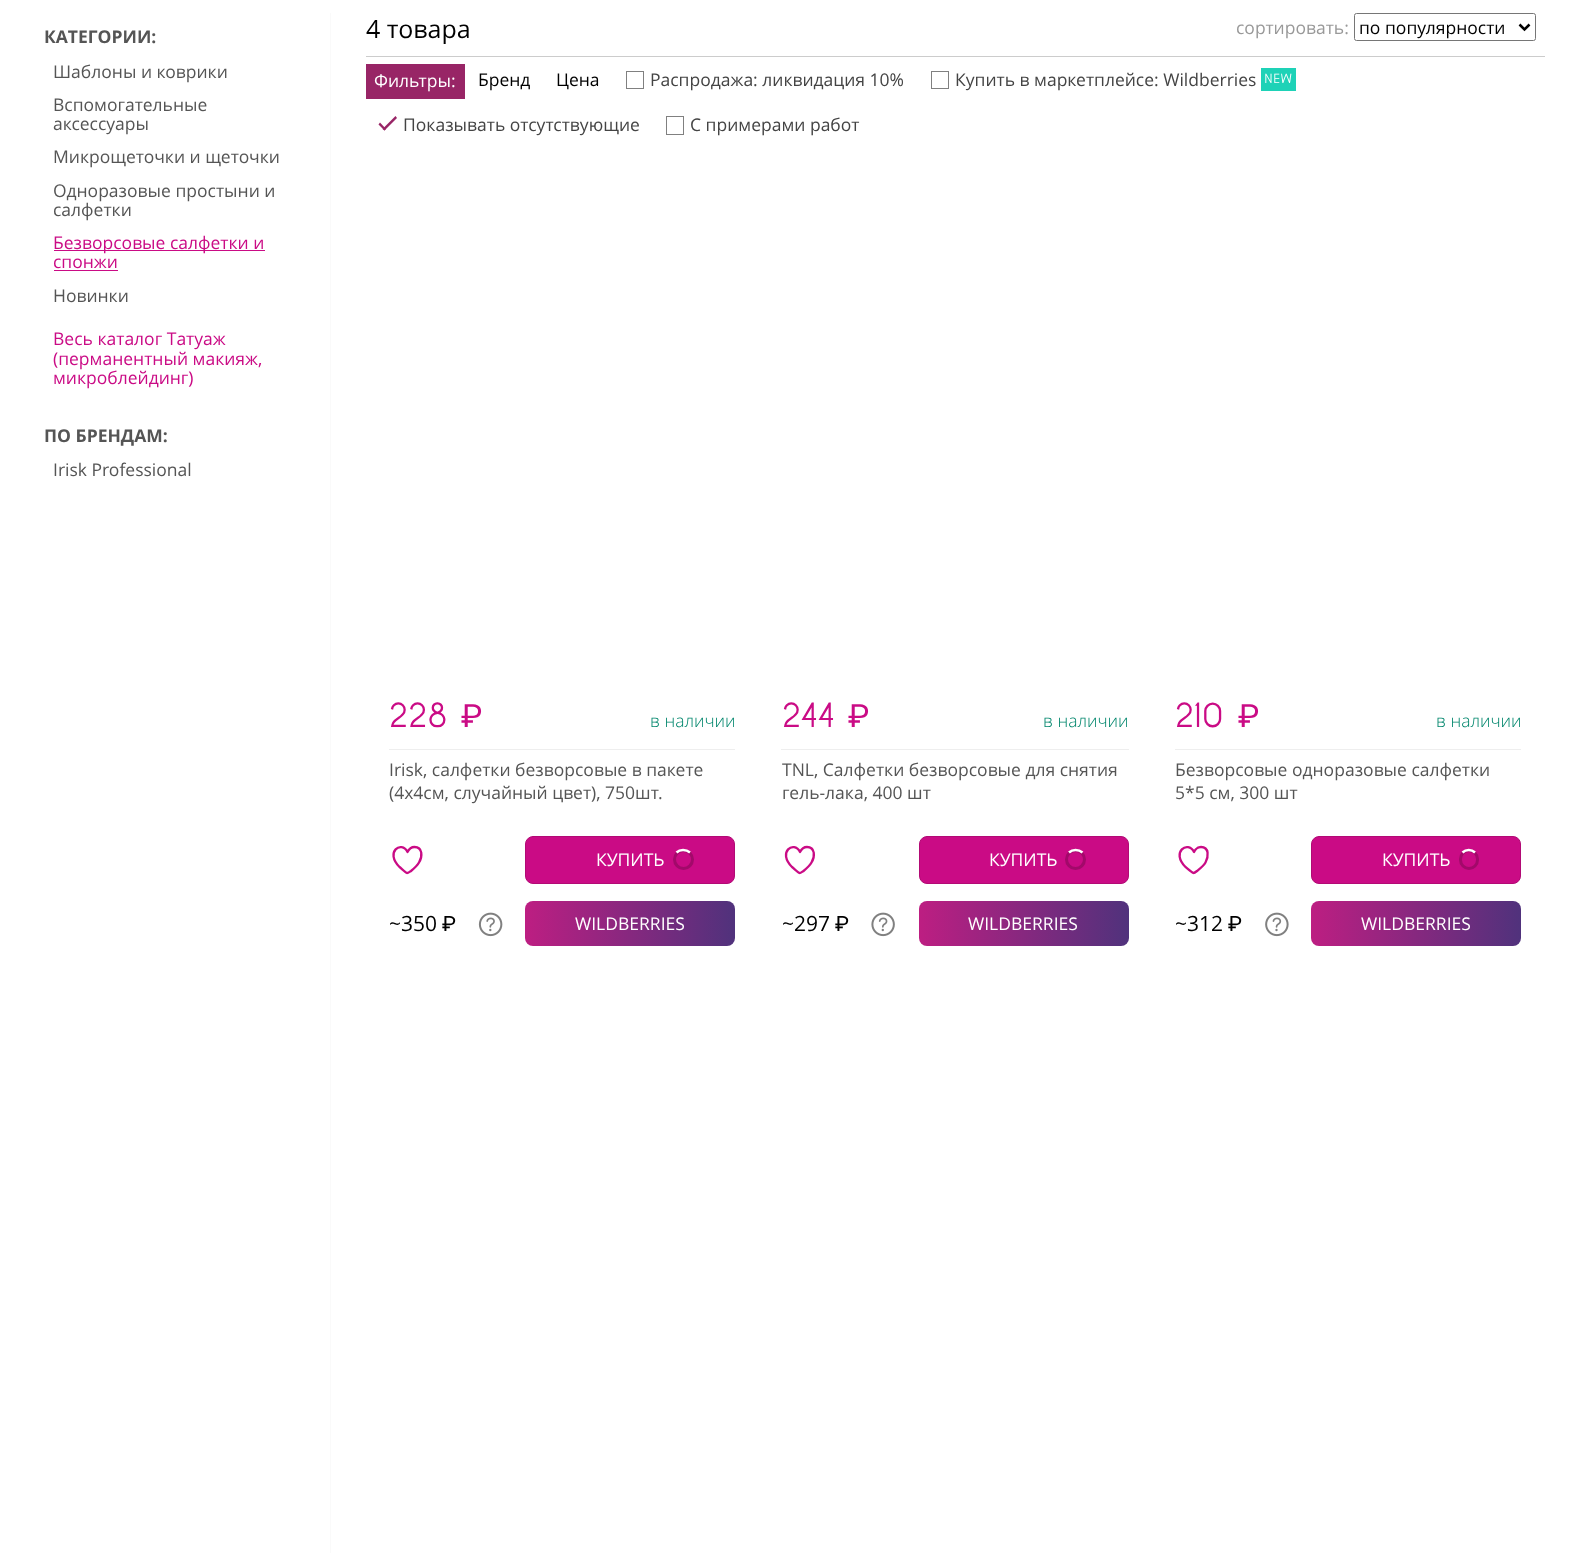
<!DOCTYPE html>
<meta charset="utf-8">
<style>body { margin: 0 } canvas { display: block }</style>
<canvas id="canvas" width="1588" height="1553"></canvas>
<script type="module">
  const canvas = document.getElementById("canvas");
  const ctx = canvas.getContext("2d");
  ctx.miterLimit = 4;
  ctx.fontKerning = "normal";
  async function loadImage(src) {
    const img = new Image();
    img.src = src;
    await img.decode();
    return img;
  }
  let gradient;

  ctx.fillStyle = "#ffffff";
  ctx.fillRect(0, 0, 1588, 1553);
  ctx.font = "bold 17.5px Open Sans";
  ctx.fillStyle = "#555555";
  ctx.fillText("КАТЕГОРИИ:", 44, 43);
  ctx.font = "17.5px Open Sans";
  ctx.fillText("Шаблоны и коврики", 53, 78);
  ctx.fillText("Вспомогательные", 53, 111);
  ctx.fillText("аксессуары", 53, 130);
  ctx.fillText("Микрощеточки и щеточки", 53, 163);
  ctx.fillText("Одноразовые простыни и", 53, 197);
  ctx.fillText("салфетки", 53, 216);
  ctx.fillStyle = "#ca0b85";
  ctx.fillRect(54, 250, 211, 1);
  ctx.fillText("Безворсовые салфетки и", 53, 249);
  ctx.fillText("спонжи", 53, 268);
  ctx.fillRect(54, 270, 64, 1);
  ctx.fillStyle = "#555555";
  ctx.fillText("Новинки", 53, 302);
  ctx.fillStyle = "#ca0b85";
  ctx.fillText("Весь каталог Татуаж", 53, 345);
  ctx.fillText("(перманентный макияж,", 53, 365);
  ctx.fillText("микроблейдинг)", 53, 384);
  ctx.font = "bold 17.5px Open Sans";
  ctx.fillStyle = "#555555";
  ctx.fillText("ПО БРЕНДАМ:", 44, 442);
  ctx.font = "17.5px Open Sans";
  ctx.fillText("Irisk Professional", 53, 476);
  ctx.fillStyle = "#fafafa";
  ctx.fillRect(330, 13, 1, 1540);
  ctx.fillStyle = "#cccccc";
  ctx.fillRect(366, 56, 1179, 1);
  ctx.font = "25px Open Sans";
  ctx.fillStyle = "#000000";
  ctx.fillText("4 товара", 366, 38);
  ctx.font = "17.5px Open Sans";
  ctx.fillStyle = "#999999";
  ctx.fillText("cортировать:", 1236, 34);
  ctx.beginPath();
  ctx.roundRect(1354.5, 13.5, 181, 27, 2);
  ctx.strokeStyle = "#767676";
  ctx.stroke();
  ctx.beginPath();
  ctx.moveTo(1519.5, 24.5);
  ctx.lineTo(1524.5, 29.5);
  ctx.lineTo(1529.5, 24.5);
  ctx.strokeStyle = "#000000";
  ctx.lineWidth = 2.5;
  ctx.stroke();
  ctx.fillStyle = "#000000";
  ctx.fillText("по популярности", 1359, 34);
  ctx.fillStyle = "#982566";
  ctx.fillRect(366, 64, 99, 35);
  ctx.fillStyle = "#ffffff";
  ctx.fillText("Фильтры:", 374, 87);
  ctx.fillStyle = "#000000";
  ctx.fillText("Бренд", 478, 86);
  ctx.fillText("Цена", 556, 86);
  ctx.strokeStyle = "#808080";
  ctx.lineWidth = 1;
  ctx.strokeRect(626.5, 71.5, 17, 17);
  ctx.fillStyle = "#444444";
  ctx.fillText("Распродажа: ликвидация 10%", 650, 86);
  ctx.strokeRect(931.5, 71.5, 17, 17);
  ctx.fillText("Купить в маркетплейсе: Wildberries", 955, 86);
  ctx.fillStyle = "#1ed2b7";
  ctx.fillRect(1261, 68, 35, 23);
  ctx.font = "bold 12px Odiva";
  ctx.fillStyle = "#ffffff";
  ctx.fillText("NEW", 1264, 83);
  ctx.fillStyle = "#982566";
  ctx.beginPath();
  ctx.moveTo(382.5, 129);
  ctx.lineTo(395.5, 116);
  ctx.lineTo(397, 118);
  ctx.lineTo(384.5, 130.5);
  ctx.closePath();
  ctx.fill();
  ctx.beginPath();
  ctx.moveTo(378.5, 124.5);
  ctx.lineTo(380, 122.5);
  ctx.lineTo(386, 129);
  ctx.lineTo(384.5, 130.5);
  ctx.closePath();
  ctx.fill();
  ctx.font = "17.5px Open Sans";
  ctx.fillStyle = "#444444";
  ctx.fillText("Показывать отсутствующие", 403, 131);
  ctx.strokeRect(666.5, 116.5, 17, 18);
  ctx.fillText("С примерами работ", 690, 131);
  ctx.fillStyle = "#eeeeee";
  ctx.fillRect(389, 749, 346, 1);
  ctx.font = "bold 32px Odiva";
  ctx.fillStyle = "#ca0b85";
  ctx.fillText("228", 389, 727);
  ctx.font = "32px Roboto";
  ctx.fillText("₽", 461, 727);
  ctx.font = "300 17.5px Open Sans";
  ctx.fillStyle = "#00866c";
  ctx.fillText("в наличии", 650, 727);
  ctx.font = "17.5px Open Sans";
  ctx.fillStyle = "#555555";
  ctx.fillText("Irisk, салфетки безворсовые в пакете", 389, 776);
  ctx.fillText("(4х4см, случайный цвет), 750шт.", 389, 799);
  ctx.beginPath();
  ctx.moveTo(414.5, 847);
  ctx.bezierCurveTo(410, 847, 407.5, 852, 407.5, 852);
  ctx.bezierCurveTo(401.5, 840, 384.5, 852, 399.5, 867);
  ctx.bezierCurveTo(401, 868, 405.5, 872.5, 407, 873);
  ctx.bezierCurveTo(408.5, 873, 410.5, 871, 411, 871);
  ctx.bezierCurveTo(414, 868.5, 417, 866, 419, 862.5);
  ctx.bezierCurveTo(422.5, 857, 423, 847, 414.5, 847);
  ctx.closePath();
  ctx.strokeStyle = "#ca0b85";
  ctx.lineWidth = 2.3;
  ctx.lineCap = "round";
  ctx.lineJoin = "round";
  ctx.stroke();
  ctx.fillStyle = "#ca0b85";
  ctx.beginPath();
  ctx.roundRect(525.5, 836.5, 209, 47, 7.5);
  ctx.fill();
  ctx.strokeStyle = "#b20a75";
  ctx.lineWidth = 1;
  ctx.lineJoin = "miter";
  ctx.stroke();
  ctx.fillStyle = "#ffffff";
  ctx.fillText("КУПИТЬ", 596, 866);
  ctx.beginPath();
  ctx.arc(683.5, 859.5, 9, 0, Math.PI * 2);
  ctx.strokeStyle = "#a2096a";
  ctx.lineWidth = 3;
  ctx.stroke();
  ctx.beginPath();
  ctx.moveTo(676.5, 852.5);
  ctx.bezierCurveTo(680, 849, 686, 849, 690, 852.5);
  ctx.strokeStyle = "#ffffff";
  ctx.lineWidth = 2.5;
  ctx.lineCap = "butt";
  ctx.stroke();
  ctx.font = "21px Open Sans";
  ctx.fillStyle = "#000000";
  ctx.fillText("~350", 389, 931);
  ctx.font = "21px Roboto";
  ctx.fillText("₽", 442, 931);
  ctx.drawImage(await loadImage("img1.png"), 478, 912, 25, 25);
  gradient = ctx.createLinearGradient(735, 924, 525, 924);
  gradient.addColorStop(0, "#50327c");
  gradient.addColorStop(1, "#bd1e82");
  ctx.fillStyle = gradient;
  ctx.beginPath();
  ctx.roundRect(525, 901, 210, 45, 8);
  ctx.fill();
  ctx.font = "17.5px Open Sans";
  ctx.fillStyle = "#ffffff";
  ctx.fillText("WILDBERRIES", 575, 930);
  ctx.fillStyle = "#eeeeee";
  ctx.fillRect(781, 749, 348, 1);
  ctx.font = "bold 32px Odiva";
  ctx.fillStyle = "#ca0b85";
  ctx.fillText("244", 782, 727);
  ctx.font = "32px Roboto";
  ctx.fillText("₽", 848, 727);
  ctx.font = "300 17.5px Open Sans";
  ctx.fillStyle = "#00866c";
  ctx.fillText("в наличии", 1043, 727);
  ctx.font = "17.5px Open Sans";
  ctx.fillStyle = "#555555";
  ctx.fillText("TNL, Салфетки безворсовые для снятия", 782, 776);
  ctx.fillText("гель-лака, 400 шт", 782, 799);
  ctx.beginPath();
  ctx.moveTo(807, 847);
  ctx.bezierCurveTo(802.5, 847, 800, 852, 800, 852);
  ctx.bezierCurveTo(794, 840, 777, 852, 792, 867);
  ctx.bezierCurveTo(793.5, 868, 798, 872.5, 799.5, 873);
  ctx.bezierCurveTo(801, 873, 803, 871, 803.5, 871);
  ctx.bezierCurveTo(806.5, 868.5, 809.5, 866, 811.5, 862.5);
  ctx.bezierCurveTo(815, 857, 815.5, 847, 807, 847);
  ctx.closePath();
  ctx.strokeStyle = "#ca0b85";
  ctx.lineWidth = 2.3;
  ctx.lineCap = "round";
  ctx.lineJoin = "round";
  ctx.stroke();
  ctx.fillStyle = "#ca0b85";
  ctx.beginPath();
  ctx.roundRect(919.5, 836.5, 209, 47, 7.5);
  ctx.fill();
  ctx.strokeStyle = "#b20a75";
  ctx.lineWidth = 1;
  ctx.lineJoin = "miter";
  ctx.stroke();
  ctx.fillStyle = "#ffffff";
  ctx.fillText("КУПИТЬ", 989, 866);
  ctx.beginPath();
  ctx.arc(1075.5, 859.5, 9, 0, Math.PI * 2);
  ctx.strokeStyle = "#a2096a";
  ctx.lineWidth = 3;
  ctx.stroke();
  ctx.beginPath();
  ctx.moveTo(1069, 852.5);
  ctx.bezierCurveTo(1072.5, 849, 1078.5, 849, 1082.5, 852.5);
  ctx.strokeStyle = "#ffffff";
  ctx.lineWidth = 2.5;
  ctx.lineCap = "butt";
  ctx.stroke();
  ctx.font = "21px Open Sans";
  ctx.fillStyle = "#000000";
  ctx.fillText("~297", 782, 931);
  ctx.font = "21px Roboto";
  ctx.fillText("₽", 835, 931);
  ctx.drawImage(await loadImage("img2.png"), 871, 912, 24, 25);
  gradient = ctx.createLinearGradient(1129, 924, 919, 924);
  gradient.addColorStop(0, "#50327c");
  gradient.addColorStop(1, "#bd1e82");
  ctx.fillStyle = gradient;
  ctx.beginPath();
  ctx.roundRect(919, 901, 210, 45, 8);
  ctx.fill();
  ctx.font = "17.5px Open Sans";
  ctx.fillStyle = "#ffffff";
  ctx.fillText("WILDBERRIES", 968, 930);
  ctx.fillStyle = "#eeeeee";
  ctx.fillRect(1175, 749, 346, 1);
  ctx.font = "bold 32px Odiva";
  ctx.fillStyle = "#ca0b85";
  ctx.fillText("210", 1175, 727);
  ctx.font = "32px Roboto";
  ctx.fillText("₽", 1238, 727);
  ctx.font = "300 17.5px Open Sans";
  ctx.fillStyle = "#00866c";
  ctx.fillText("в наличии", 1436, 727);
  ctx.font = "17.5px Open Sans";
  ctx.fillStyle = "#555555";
  ctx.fillText("Безворсовые одноразовые салфетки", 1175, 776);
  ctx.fillText("5*5 см, 300 шт", 1175, 799);
  ctx.beginPath();
  ctx.moveTo(1201, 847);
  ctx.bezierCurveTo(1196, 847, 1194, 852, 1194, 852);
  ctx.bezierCurveTo(1188, 840, 1170.5, 852, 1185.5, 867);
  ctx.bezierCurveTo(1187, 868, 1191.5, 872.5, 1193.5, 873);
  ctx.bezierCurveTo(1194.5, 873, 1197, 871, 1197, 871);
  ctx.bezierCurveTo(1200, 868.5, 1203.5, 866, 1205.5, 862.5);
  ctx.bezierCurveTo(1208.5, 857, 1209.5, 847, 1201, 847);
  ctx.closePath();
  ctx.strokeStyle = "#ca0b85";
  ctx.lineWidth = 2.3;
  ctx.lineCap = "round";
  ctx.lineJoin = "round";
  ctx.stroke();
  ctx.fillStyle = "#ca0b85";
  ctx.beginPath();
  ctx.roundRect(1311.5, 836.5, 209, 47, 7.5);
  ctx.fill();
  ctx.strokeStyle = "#b20a75";
  ctx.lineWidth = 1;
  ctx.lineJoin = "miter";
  ctx.stroke();
  ctx.fillStyle = "#ffffff";
  ctx.fillText("КУПИТЬ", 1382, 866);
  ctx.beginPath();
  ctx.roundRect(1460.5, 850.5, 17, 18, 8.5);
  ctx.strokeStyle = "#a2096a";
  ctx.lineWidth = 3;
  ctx.stroke();
  ctx.beginPath();
  ctx.moveTo(1462.5, 852.5);
  ctx.bezierCurveTo(1466, 849, 1471.5, 849, 1475, 852.5);
  ctx.strokeStyle = "#ffffff";
  ctx.lineWidth = 2.5;
  ctx.lineCap = "butt";
  ctx.stroke();
  ctx.font = "21px Open Sans";
  ctx.fillStyle = "#000000";
  ctx.fillText("~312", 1175, 931);
  ctx.font = "21px Roboto";
  ctx.fillText("₽", 1228, 931);
  ctx.drawImage(await loadImage("img3.png"), 1265, 912, 24, 25);
  gradient = ctx.createLinearGradient(1521, 924, 1311, 924);
  gradient.addColorStop(0, "#50327c");
  gradient.addColorStop(1, "#bd1e82");
  ctx.fillStyle = gradient;
  ctx.beginPath();
  ctx.roundRect(1311, 901, 210, 45, 8);
  ctx.fill();
  ctx.font = "17.5px Open Sans";
  ctx.fillStyle = "#ffffff";
  ctx.fillText("WILDBERRIES", 1361, 930);
</script>
